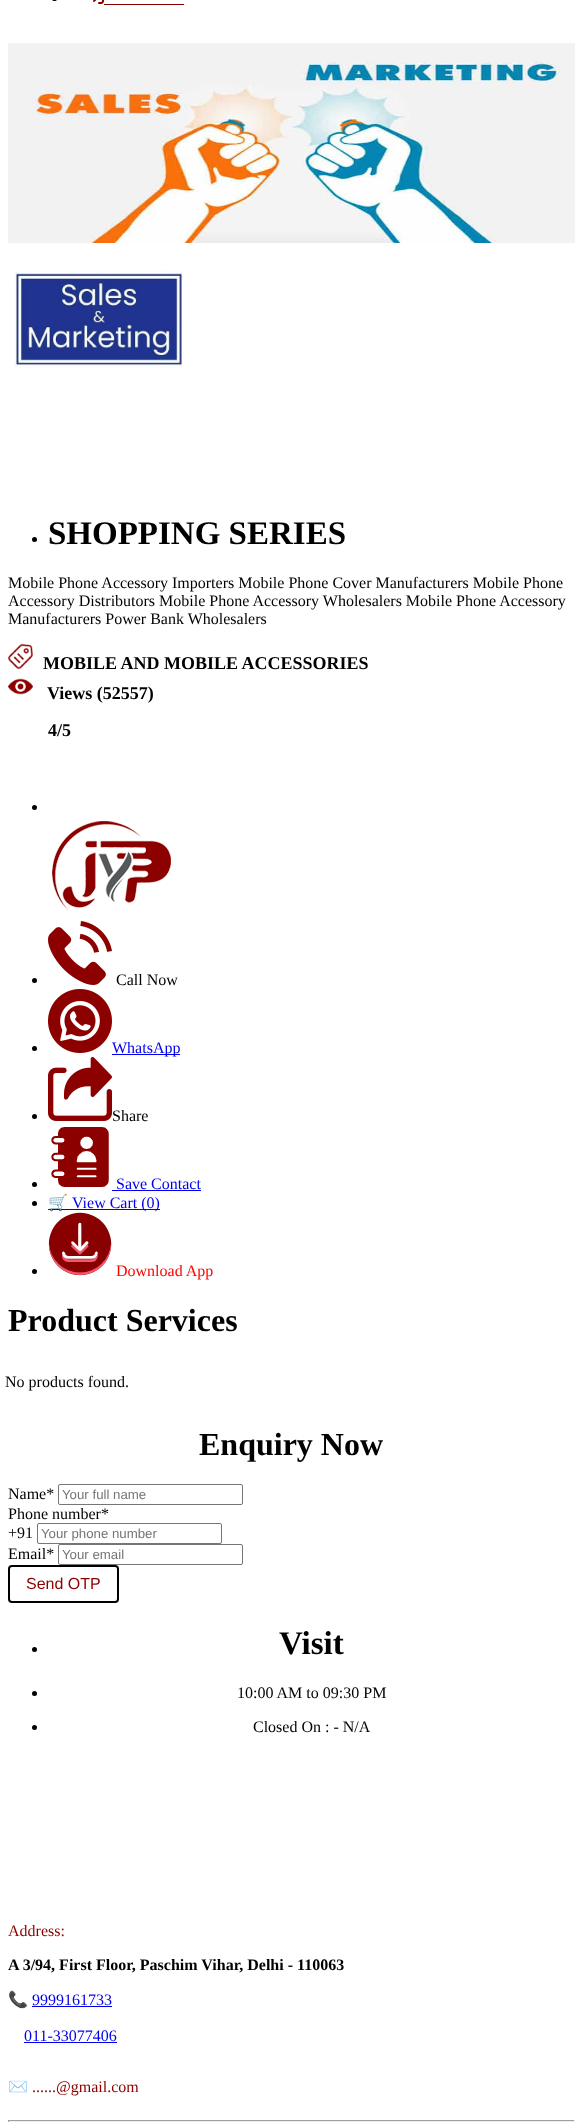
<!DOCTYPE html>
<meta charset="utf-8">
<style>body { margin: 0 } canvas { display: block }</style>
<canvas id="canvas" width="583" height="2128"></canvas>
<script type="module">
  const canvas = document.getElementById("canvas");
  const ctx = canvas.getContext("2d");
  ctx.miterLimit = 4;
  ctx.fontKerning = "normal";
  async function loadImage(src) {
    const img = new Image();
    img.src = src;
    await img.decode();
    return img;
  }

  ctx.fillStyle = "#ffffff";
  ctx.fillRect(0, 0, 583, 2128);
  ctx.fillStyle = "#000000";
  ctx.beginPath();
  ctx.roundRect(52, -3, 5, 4, 2.5);
  ctx.fill();
  ctx.drawImage(await loadImage("img1.png"), 93, 0, 11, 4);
  ctx.fillStyle = "#880000";
  ctx.fillRect(104, 4, 80, 1);
  ctx.drawImage(await loadImage("img2.png"), 8, 43, 567, 200);
  ctx.drawImage(await loadImage("img3.png"), 14, 270, 170, 99);
  ctx.fillStyle = "#000000";
  ctx.beginPath();
  ctx.arc(34.5, 539.5, 2.5, 0, Math.PI * 2);
  ctx.fill();
  ctx.font = "bold 33px Liberation Serif";
  ctx.fillText("SHOPPING SERIES", 48, 544);
  ctx.font = "16px Liberation Serif";
  ctx.fillText("Mobile Phone Accessory Importers Mobile Phone Cover Manufacturers Mobile Phone", 8, 588);
  ctx.fillText("Accessory Distributors Mobile Phone Accessory Wholesalers Mobile Phone Accessory", 8, 606);
  ctx.fillText("Manufacturers Power Bank Wholesalers", 8, 624);
  ctx.drawImage(await loadImage("img4.png"), 8, 644, 25, 25);
  ctx.font = "bold 18px Liberation Serif";
  ctx.fillText("MOBILE AND MOBILE ACCESSORIES", 43, 669);
  ctx.drawImage(await loadImage("img5.png"), 8, 678, 25, 17);
  ctx.fillText("Views (52557)", 47, 699);
  ctx.fillText("4/5", 48, 736);
  ctx.beginPath();
  ctx.arc(34.5, 807.5, 2.5, 0, Math.PI * 2);
  ctx.fill();
  ctx.drawImage(await loadImage("img6.png"), 52, 821, 119, 90);
  ctx.beginPath();
  ctx.arc(34.5, 980.5, 2.5, 0, Math.PI * 2);
  ctx.fill();
  ctx.drawImage(await loadImage("img7.png"), 48, 921, 64, 64);
  ctx.font = "16px Liberation Serif";
  ctx.fillText("Call Now", 116, 985);
  ctx.beginPath();
  ctx.arc(34.5, 1048.5, 2.5, 0, Math.PI * 2);
  ctx.fill();
  ctx.drawImage(await loadImage("img8.png"), 48, 989, 64, 64);
  ctx.fillStyle = "#0000ee";
  ctx.fillRect(112, 1054, 68, 1);
  ctx.fillText("WhatsApp", 112, 1053);
  ctx.fillStyle = "#000000";
  ctx.beginPath();
  ctx.arc(34.5, 1116.5, 2.5, 0, Math.PI * 2);
  ctx.fill();
  ctx.drawImage(await loadImage("img9.png"), 48, 1057, 64, 64);
  ctx.fillText("Share", 112, 1121);
  ctx.beginPath();
  ctx.arc(34.5, 1184.5, 2.5, 0, Math.PI * 2);
  ctx.fill();
  ctx.drawImage(await loadImage("img10.png"), 51, 1127, 58, 60);
  ctx.fillStyle = "#0000ee";
  ctx.fillText("Save Contact", 116, 1189);
  ctx.fillRect(112, 1190, 89, 1);
  ctx.fillStyle = "#000000";
  ctx.beginPath();
  ctx.arc(34.5, 1203.5, 2.5, 0, Math.PI * 2);
  ctx.fill();
  ctx.fillStyle = "#0000ee";
  ctx.fillRect(48, 1209, 112, 1);
  ctx.font = "16px Noto Color Emoji";
  ctx.fillText("🛒", 48, 1208);
  ctx.font = "16px Liberation Serif";
  ctx.fillText("View Cart (0)", 72, 1208);
  ctx.fillStyle = "#000000";
  ctx.beginPath();
  ctx.arc(34.5, 1271.5, 2.5, 0, Math.PI * 2);
  ctx.fill();
  ctx.drawImage(await loadImage("img11.png"), 48, 1212, 64, 64);
  ctx.fillStyle = "#ff0000";
  ctx.fillText("Download App", 116, 1276);
  ctx.font = "bold 32px Liberation Serif";
  ctx.fillStyle = "#000000";
  ctx.fillText("Product Services", 8, 1331);
  ctx.font = "16px Liberation Serif";
  ctx.fillText("No products found.", 5, 1387);
  ctx.font = "bold 32px Liberation Serif";
  ctx.fillText("Enquiry Now", 199, 1455);
  ctx.font = "16px Liberation Serif";
  ctx.fillText("Name*", 8, 1499);
  ctx.beginPath();
  ctx.roundRect(58.5, 1484.5, 184, 20, 1.5);
  ctx.strokeStyle = "#767676";
  ctx.stroke();
  ctx.font = "13.25px Liberation Sans";
  ctx.fillStyle = "#757575";
  ctx.fillText("Your full name", 62, 1499);
  ctx.font = "16px Liberation Serif";
  ctx.fillStyle = "#000000";
  ctx.fillText("Phone number*", 8, 1519);
  ctx.fillText("+91", 8, 1538);
  ctx.beginPath();
  ctx.roundRect(37.5, 1523.5, 184, 20, 1.5);
  ctx.stroke();
  ctx.font = "13.25px Liberation Sans";
  ctx.fillStyle = "#757575";
  ctx.fillText("Your phone number", 41, 1538);
  ctx.font = "16px Liberation Serif";
  ctx.fillStyle = "#000000";
  ctx.fillText("Email*", 8, 1559);
  ctx.beginPath();
  ctx.roundRect(58.5, 1544.5, 184, 20, 1.5);
  ctx.stroke();
  ctx.font = "13.25px Liberation Sans";
  ctx.fillStyle = "#757575";
  ctx.fillText("Your email", 62, 1559);
  ctx.beginPath();
  ctx.roundRect(9, 1566, 109, 36, 3);
  ctx.strokeStyle = "#000000";
  ctx.lineWidth = 2;
  ctx.stroke();
  ctx.font = "16px Liberation Sans";
  ctx.fillStyle = "#8c0000";
  ctx.fillText("Send OTP", 26, 1589);
  ctx.fillStyle = "#000000";
  ctx.beginPath();
  ctx.arc(34.5, 1649.5, 2.5, 0, Math.PI * 2);
  ctx.fill();
  ctx.font = "bold 33px Liberation Serif";
  ctx.fillText("Visit", 279, 1654);
  ctx.beginPath();
  ctx.arc(34.5, 1693.5, 2.5, 0, Math.PI * 2);
  ctx.fill();
  ctx.font = "16px Liberation Serif";
  ctx.fillText("10:00 AM to 09:30 PM", 237, 1698);
  ctx.beginPath();
  ctx.arc(34.5, 1727.5, 2.5, 0, Math.PI * 2);
  ctx.fill();
  ctx.fillText("Closed On : - N/A", 253, 1732);
  ctx.fillStyle = "#8c0000";
  ctx.fillText("Address:", 8, 1936);
  ctx.font = "bold 16px Liberation Serif";
  ctx.fillStyle = "#000000";
  ctx.fillText("A 3/94, First Floor, Paschim Vihar, Delhi - 110063", 8, 1970);
  ctx.font = "16px Noto Color Emoji";
  ctx.fillText("📞", 8, 2005);
  ctx.font = "16px Liberation Serif";
  ctx.fillStyle = "#0000ee";
  ctx.fillText("9999161733", 32, 2005);
  ctx.fillRect(32, 2006, 80, 1);
  ctx.fillText("011-33077406", 24, 2041);
  ctx.fillRect(24, 2042, 93, 1);
  ctx.font = "16px Noto Color Emoji";
  ctx.fillStyle = "#000000";
  ctx.fillText("✉️", 8, 2092);
  ctx.font = "16px Liberation Serif";
  ctx.fillStyle = "#8c0000";
  ctx.fillText("......@gmail.com", 32, 2092);
  ctx.fillStyle = "#9f9f9f";
  ctx.fillRect(8, 2120, 567, 1);
  ctx.fillStyle = "#eeeeee";
  ctx.fillRect(574, 2120, 1, 2);
  ctx.fillRect(8, 2121, 567, 1);
  ctx.fillStyle = "#9f9f9f";
  ctx.fillRect(8, 2120, 1, 2);
</script>
